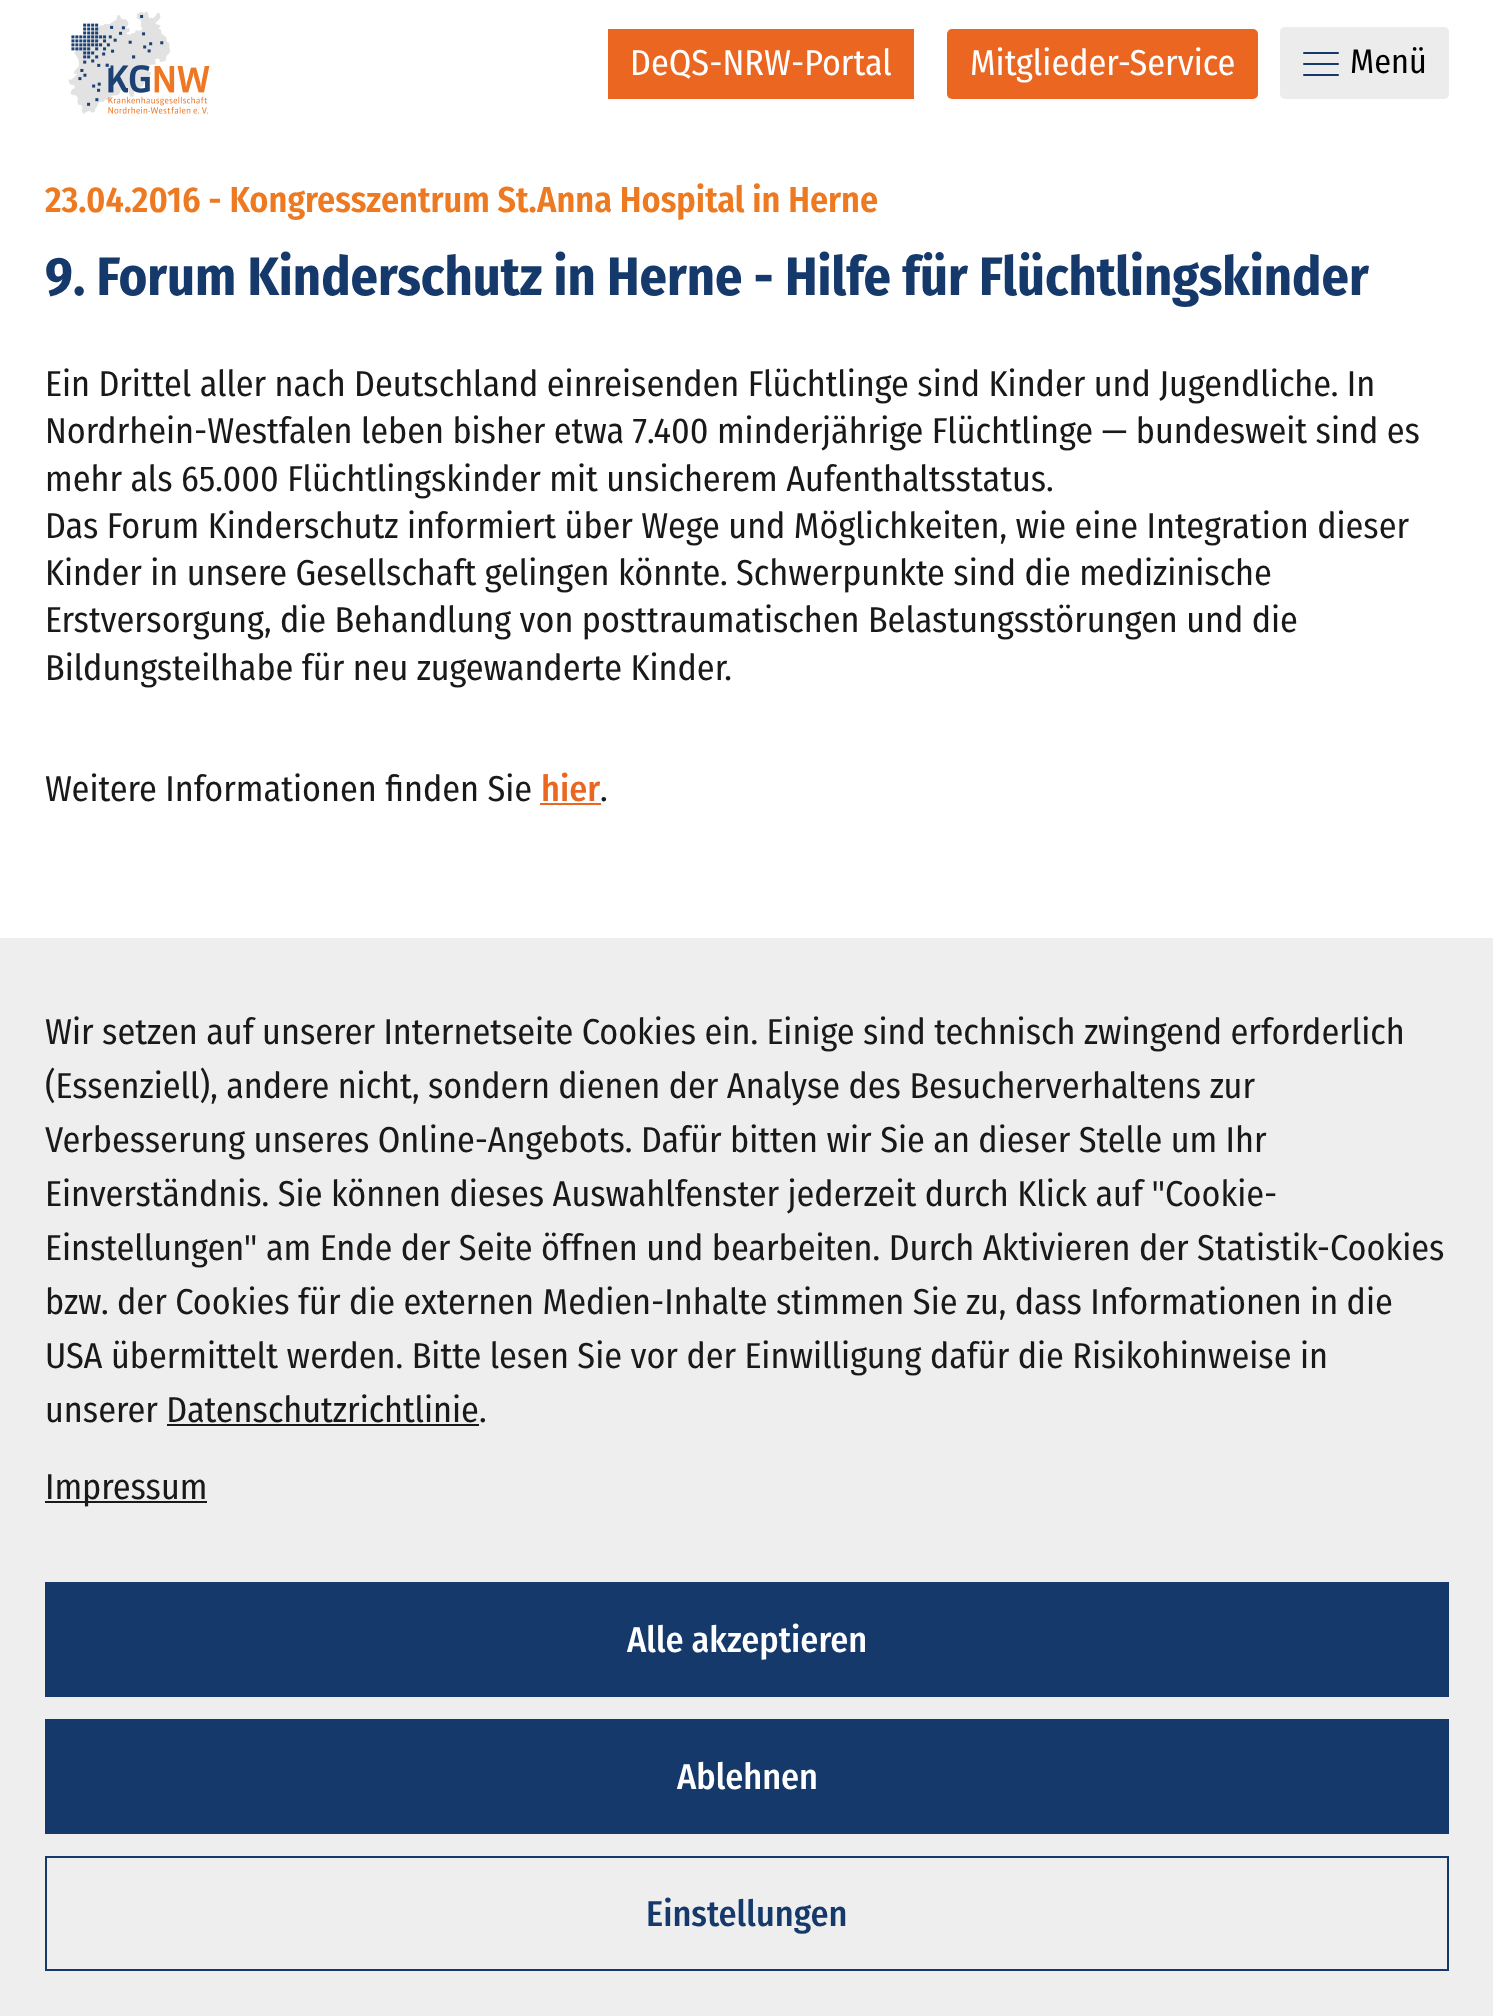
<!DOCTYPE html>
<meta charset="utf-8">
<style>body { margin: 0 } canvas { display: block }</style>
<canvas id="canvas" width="1493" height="2016"></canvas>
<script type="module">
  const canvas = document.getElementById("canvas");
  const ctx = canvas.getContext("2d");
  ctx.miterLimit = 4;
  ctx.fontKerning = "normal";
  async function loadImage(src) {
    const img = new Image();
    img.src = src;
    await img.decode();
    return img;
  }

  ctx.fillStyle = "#ffffff";
  ctx.fillRect(0, 0, 1493, 2016);
  ctx.drawImage(await loadImage("img1.png"), 68, 11, 142, 103);
  ctx.fillStyle = "#eb6620";
  ctx.fillRect(608, 29, 306, 70);
  ctx.font = "36px Fira Sans Condensed";
  ctx.fillStyle = "#ffffff";
  ctx.fillText("DeQS-NRW-Portal", 630, 75);
  ctx.fillStyle = "#eb6620";
  ctx.beginPath();
  ctx.roundRect(947, 29, 311, 70, 5);
  ctx.fill();
  ctx.fillStyle = "#ffffff";
  ctx.fillText("Mitglieder-Service", 970, 75);
  ctx.fillStyle = "#ececec";
  ctx.beginPath();
  ctx.roundRect(1280, 27, 169, 72, 5);
  ctx.fill();
  ctx.fillStyle = "#15396a";
  ctx.beginPath();
  ctx.roundRect(1303, 52, 36, 2, 1);
  ctx.fill();
  ctx.beginPath();
  ctx.roundRect(1303, 63, 36, 2, 1);
  ctx.fill();
  ctx.beginPath();
  ctx.roundRect(1303, 74, 36, 2, 1);
  ctx.fill();
  ctx.font = "34px Fira Sans Condensed";
  ctx.fillStyle = "#000000";
  ctx.fillText("Menü", 1350, 73);
  ctx.font = "600 36px Fira Sans Condensed";
  ctx.fillStyle = "#ed7921";
  ctx.fillText("23.04.2016 - Kongresszentrum St.Anna Hospital in Herne", 45, 212);
  ctx.font = "bold 54px Fira Sans Condensed";
  ctx.fillStyle = "#15396a";
  ctx.fillText("9. Forum Kinderschutz in Herne - Hilfe für Flüchtlingskinder", 45, 295);
  ctx.font = "36px Fira Sans Condensed";
  ctx.fillStyle = "#191919";
  ctx.fillText("Ein Drittel aller nach Deutschland einreisenden Flüchtlinge sind Kinder und Jugendliche. In", 45, 396);
  ctx.fillText("Nordrhein-Westfalen leben bisher etwa 7.400 minderjährige Flüchtlinge — bundesweit sind es", 45, 443);
  ctx.fillText("mehr als 65.000 Flüchtlingskinder mit unsicherem Aufenthaltsstatus.", 45, 491);
  ctx.fillText("Das Forum Kinderschutz informiert über Wege und Möglichkeiten, wie eine Integration dieser", 45, 538);
  ctx.fillText("Kinder in unsere Gesellschaft gelingen könnte. Schwerpunkte sind die medizinische", 45, 585);
  ctx.fillText("Erstversorgung, die Behandlung von posttraumatischen Belastungsstörungen und die", 45, 632);
  ctx.fillText("Bildungsteilhabe für neu zugewanderte Kinder.", 45, 680);
  ctx.fillText("Weitere Informationen finden Sie", 45, 801);
  ctx.font = "500 36px Fira Sans Condensed";
  ctx.fillStyle = "#eb6620";
  ctx.fillText("hier", 541, 801);
  ctx.fillRect(540, 803, 61, 2);
  ctx.font = "36px Fira Sans Condensed";
  ctx.fillStyle = "#191919";
  ctx.fillText(".", 600, 801);
  ctx.fillStyle = "#eeeeee";
  ctx.fillRect(0, 938, 1493, 1078);
  ctx.fillStyle = "#191919";
  ctx.fillText("Wir setzen auf unserer Internetseite Cookies ein. Einige sind technisch zwingend erforderlich", 45, 1044);
  ctx.fillText("(Essenziell), andere nicht, sondern dienen der Analyse des Besucherverhaltens zur", 45, 1098);
  ctx.fillText("Verbesserung unseres Online-Angebots. Dafür bitten wir Sie an dieser Stelle um Ihr", 45, 1152);
  ctx.fillText("Einverständnis. Sie können dieses Auswahlfenster jederzeit durch Klick auf \"Cookie-", 45, 1206);
  ctx.fillText("Einstellungen\" am Ende der Seite öffnen und bearbeiten. Durch Aktivieren der Statistik-Cookies", 45, 1260);
  ctx.fillText("bzw. der Cookies für die externen Medien-Inhalte stimmen Sie zu, dass Informationen in die", 45, 1314);
  ctx.fillText("USA übermittelt werden. Bitte lesen Sie vor der Einwilligung dafür die Risikohinweise in", 45, 1368);
  ctx.fillText("unserer Datenschutzrichtlinie", 45, 1422);
  ctx.fillText(".", 479, 1422);
  ctx.fillRect(167, 1424, 312, 2);
  ctx.fillRect(45, 1501, 162, 2);
  ctx.fillText("Impressum", 45, 1499);
  ctx.fillStyle = "#15396a";
  ctx.fillRect(45, 1582, 1404, 115);
  ctx.font = "500 36px Fira Sans Condensed";
  ctx.fillStyle = "#ffffff";
  ctx.fillText("Alle akzeptieren", 627, 1652);
  ctx.fillStyle = "#15396a";
  ctx.fillRect(45, 1719, 1404, 115);
  ctx.fillStyle = "#ffffff";
  ctx.fillText("Ablehnen", 677, 1789);
  ctx.strokeStyle = "#15396a";
  ctx.lineWidth = 2;
  ctx.strokeRect(46, 1857, 1402, 113);
  ctx.fillStyle = "#15396a";
  ctx.fillText("Einstellungen", 646, 1926);
</script>
